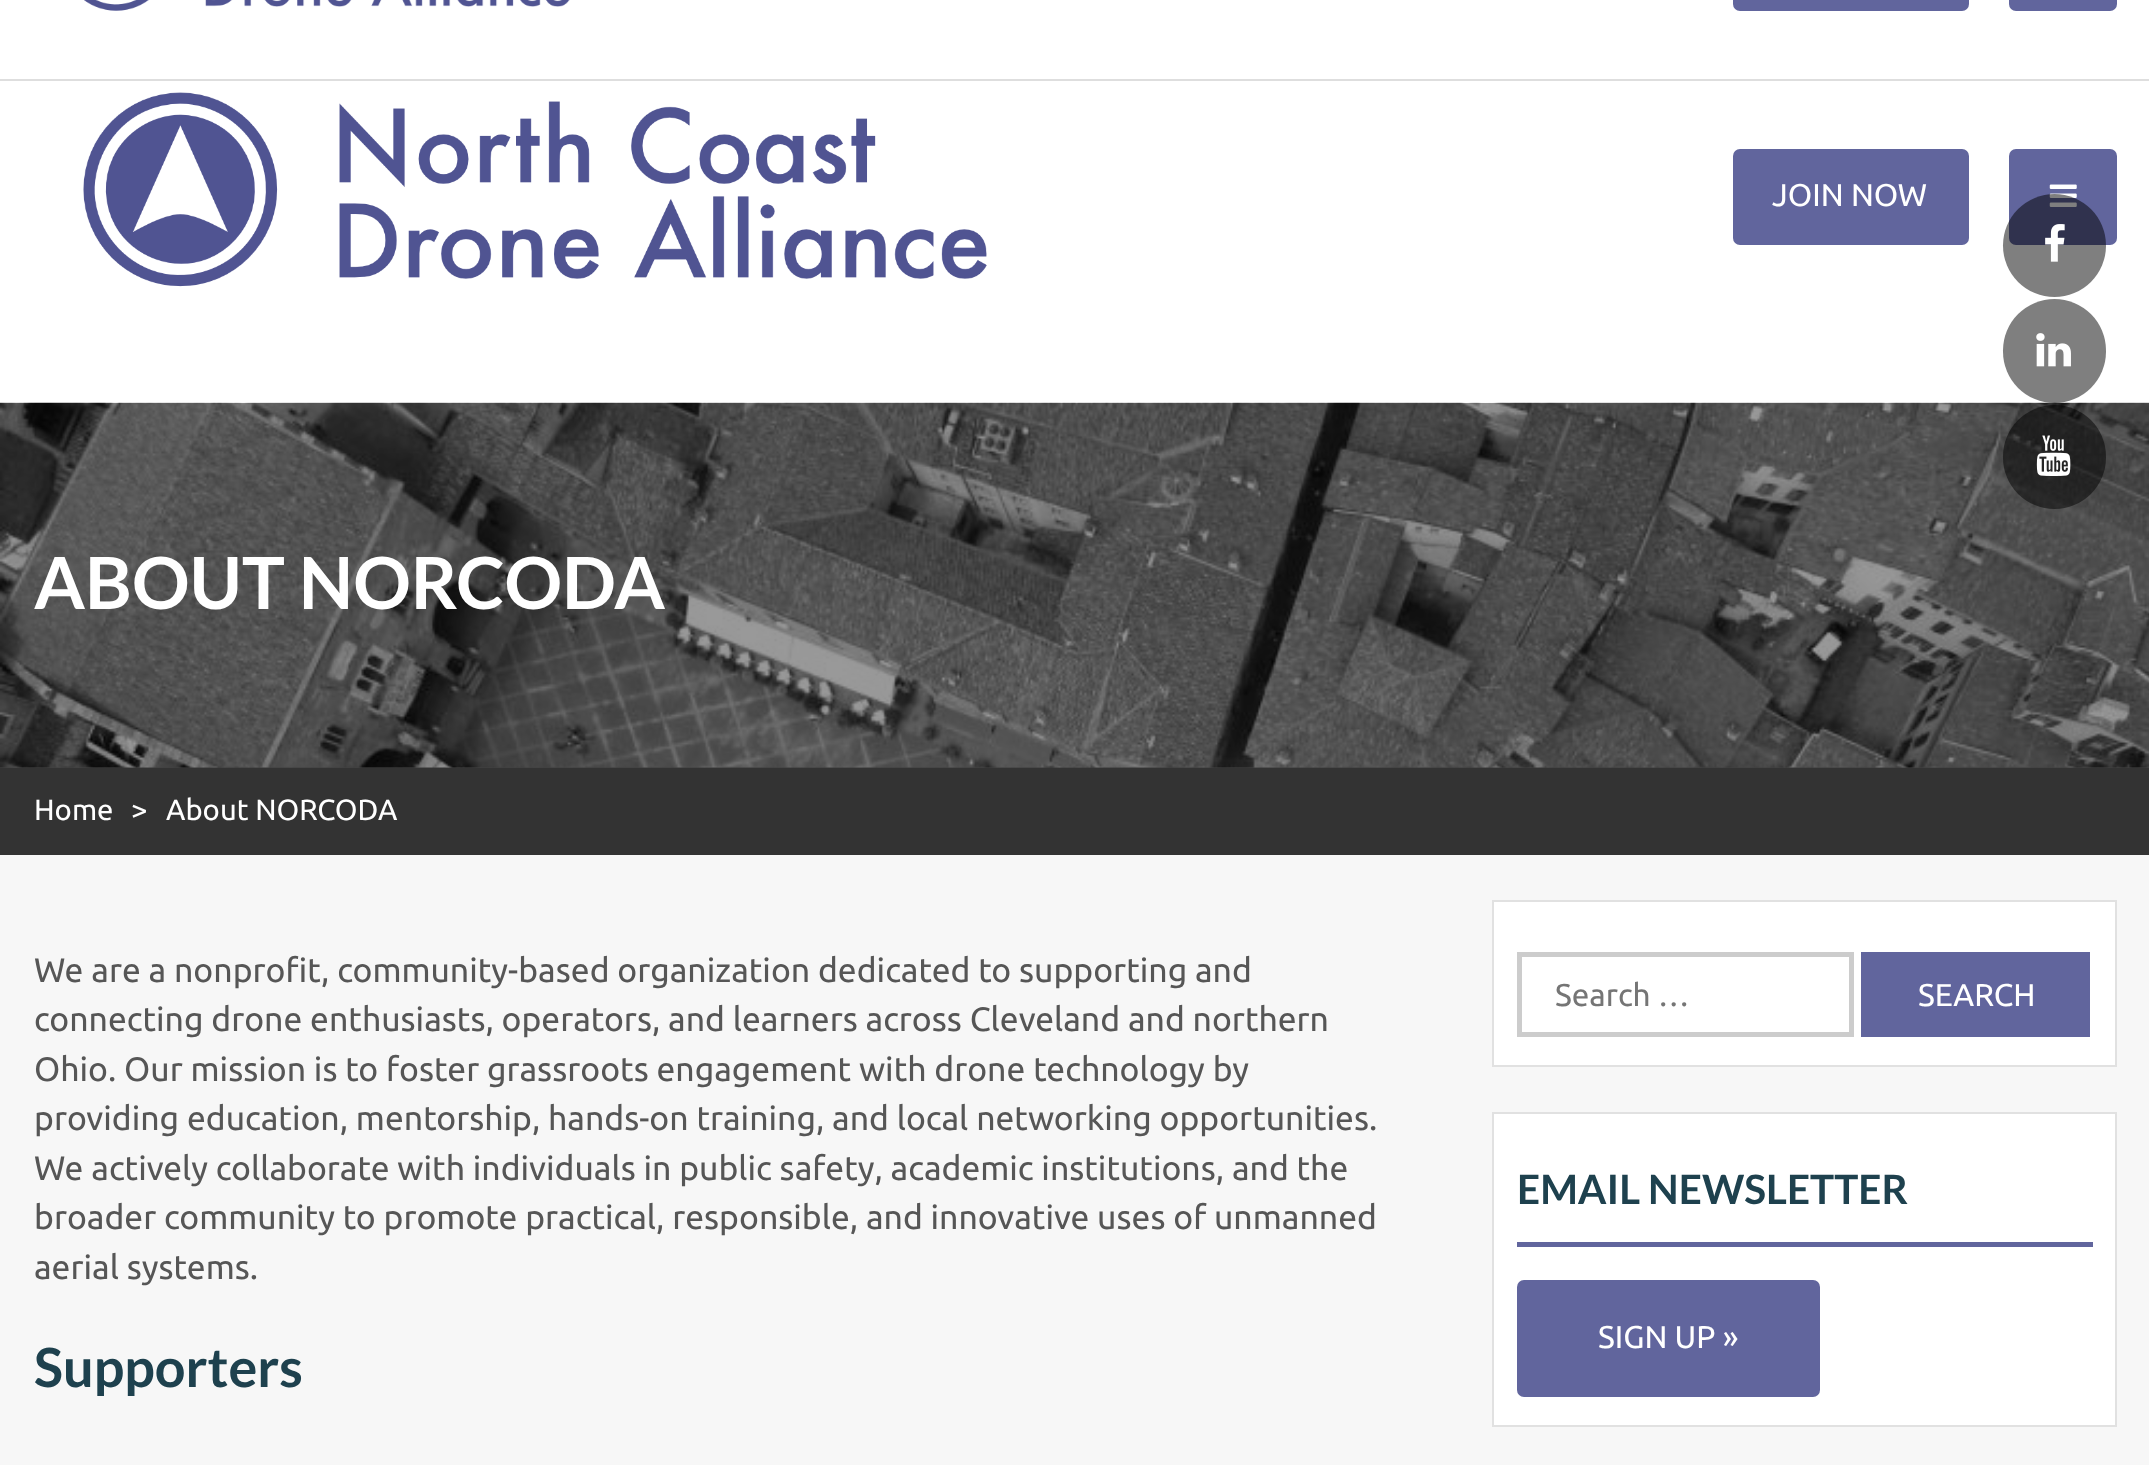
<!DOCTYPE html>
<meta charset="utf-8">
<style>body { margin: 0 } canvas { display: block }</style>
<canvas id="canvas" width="2149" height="1465"></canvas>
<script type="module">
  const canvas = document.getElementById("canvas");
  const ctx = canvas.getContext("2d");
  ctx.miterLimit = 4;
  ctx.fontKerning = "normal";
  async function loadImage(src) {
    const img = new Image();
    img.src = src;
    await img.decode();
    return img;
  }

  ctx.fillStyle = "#f7f7f7";
  ctx.fillRect(0, 0, 2149, 1465);
  ctx.fillStyle = "#ffffff";
  ctx.fillRect(0, 0, 2149, 403);
  ctx.fillStyle = "#dedede";
  ctx.fillRect(0, 79, 2149, 2);
  ctx.drawImage(await loadImage("img1.png"), 84, 0, 486, 11);
  ctx.fillStyle = "#61659d";
  ctx.beginPath();
  ctx.roundRect(1733, -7, 236, 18, 7);
  ctx.fill();
  ctx.beginPath();
  ctx.roundRect(2009, -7, 108, 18, 7);
  ctx.fill();
  ctx.drawImage(await loadImage("img2.png"), 83, 92, 904, 195);
  ctx.beginPath();
  ctx.roundRect(1733, 149, 236, 96, 7);
  ctx.fill();
  ctx.font = "31.5px Ubuntu";
  ctx.fillStyle = "#ffffff";
  ctx.fillText("JOIN NOW", 1772, 206);
  ctx.fillStyle = "#61659d";
  ctx.beginPath();
  ctx.roundRect(2009, 149, 108, 96, 7);
  ctx.fill();
  ctx.drawImage(await loadImage("img3.png"), 2049, 184, 28, 23);
  ctx.fillStyle = "rgba(0, 0, 0, 0.5)";
  ctx.beginPath();
  ctx.arc(2054.5, 245.5, 51.5, 0, Math.PI * 2);
  ctx.fill();
  ctx.drawImage(await loadImage("img4.png"), 2045, 224, 20, 38);
  ctx.fillStyle = "#333333";
  ctx.fillRect(0, 767, 2149, 88);
  ctx.drawImage(await loadImage("img7.png"), 0, 402, 2149, 366);
  ctx.fillStyle = "rgba(0, 0, 0, 0.5)";
  ctx.beginPath();
  ctx.roundRect(2003, 299, 103, 104, 51.5);
  ctx.fill();
  ctx.drawImage(await loadImage("img5.png"), 2036, 333, 35, 34);
  ctx.beginPath();
  ctx.roundRect(2003, 405, 103, 104, 51.5);
  ctx.fill();
  ctx.drawImage(await loadImage("img6.png"), 2036, 435, 35, 41);
  ctx.font = "bold 72px Lato";
  ctx.fillStyle = "#ffffff";
  ctx.fillText("ABOUT NORCODA", 34, 609);
  ctx.font = "29.25px Ubuntu";
  ctx.fillText("Home", 34, 820);
  ctx.fillText(">", 131, 820);
  ctx.fillText("About NORCODA", 166, 820);
  ctx.font = "33.75px Ubuntu";
  ctx.fillStyle = "#565656";
  ctx.fillText("We are a nonprofit, community-based organization dedicated to supporting and", 34, 982);
  ctx.fillText("connecting drone enthusiasts, operators, and learners across Cleveland and northern", 34, 1031);
  ctx.fillText("Ohio. Our mission is to foster grassroots engagement with drone technology by", 34, 1081);
  ctx.fillText("providing education, mentorship, hands-on training, and local networking opportunities.", 34, 1130);
  ctx.fillText("We actively collaborate with individuals in public safety, academic institutions, and the", 34, 1180);
  ctx.fillText("broader community to promote practical, responsible, and innovative uses of unmanned", 34, 1229);
  ctx.fillText("aerial systems.", 34, 1279);
  ctx.font = "bold 54px Lato";
  ctx.fillStyle = "#1e414e";
  ctx.fillText("Supporters", 34, 1387);
  ctx.fillStyle = "#ffffff";
  ctx.beginPath();
  ctx.rect(1493, 901, 623, 165);
  ctx.fill();
  ctx.strokeStyle = "#e1e1e1";
  ctx.lineWidth = 2;
  ctx.stroke();
  ctx.strokeStyle = "#cccccc";
  ctx.lineWidth = 5;
  ctx.strokeRect(1519.5, 954.5, 332, 80);
  ctx.font = "31.5px Ubuntu";
  ctx.fillStyle = "#757575";
  ctx.fillText("Search …", 1555, 1006);
  ctx.fillStyle = "#61659d";
  ctx.fillRect(1861, 952, 229, 85);
  ctx.fillStyle = "#ffffff";
  ctx.fillText("SEARCH", 1918, 1006);
  ctx.beginPath();
  ctx.rect(1493, 1113, 623, 313);
  ctx.fill();
  ctx.strokeStyle = "#e1e1e1";
  ctx.lineWidth = 2;
  ctx.stroke();
  ctx.fillStyle = "#61659d";
  ctx.fillRect(1517, 1242, 576, 5);
  ctx.font = "bold 40.5px Lato";
  ctx.fillStyle = "#1e414e";
  ctx.fillText("EMAIL NEWSLETTER", 1517, 1204);
  ctx.fillStyle = "#61659d";
  ctx.beginPath();
  ctx.roundRect(1517, 1280, 303, 117, 7);
  ctx.fill();
  ctx.font = "31.5px Ubuntu";
  ctx.fillStyle = "#ffffff";
  ctx.fillText("SIGN UP »", 1598, 1348);
</script>
